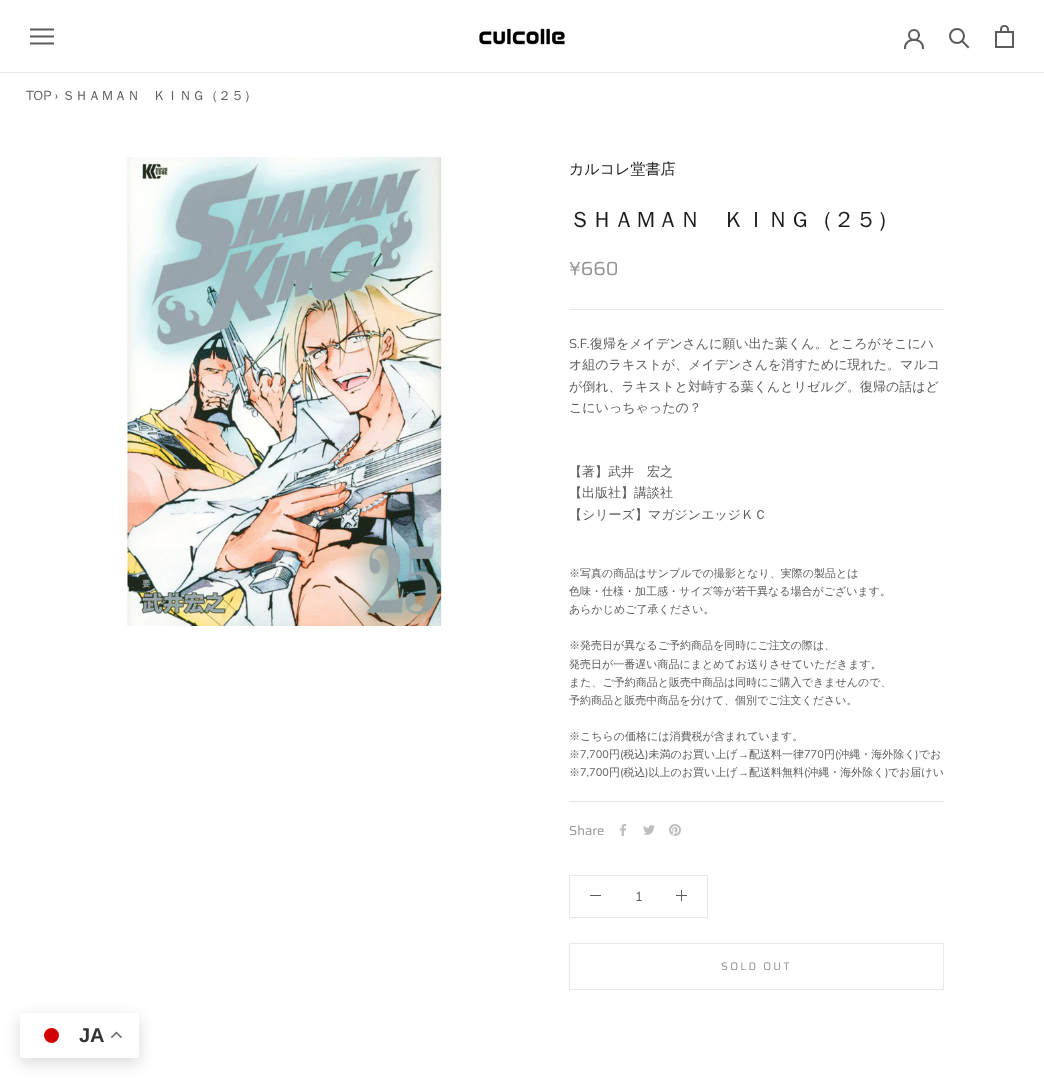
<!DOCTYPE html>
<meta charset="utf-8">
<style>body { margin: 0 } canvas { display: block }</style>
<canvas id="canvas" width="1044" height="1085"></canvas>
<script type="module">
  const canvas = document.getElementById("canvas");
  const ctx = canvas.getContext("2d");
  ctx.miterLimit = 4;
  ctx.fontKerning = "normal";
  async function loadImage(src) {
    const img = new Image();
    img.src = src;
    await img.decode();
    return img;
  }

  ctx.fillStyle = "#ffffff";
  ctx.fillRect(0, 0, 1044, 1085);
  ctx.fillStyle = "#e7e7e7";
  ctx.fillRect(0, 72, 1044, 1);
  ctx.drawImage(await loadImage("img1.png"), 30, 28, 24, 17);
  ctx.drawImage(await loadImage("img2.png"), 479, 28, 86, 17);
  ctx.beginPath();
  ctx.moveTo(905, 48);
  ctx.bezierCurveTo(905, 37, 923, 37, 923, 48);
  ctx.strokeStyle = "#5c5c5c";
  ctx.lineWidth = 2;
  ctx.lineCap = "square";
  ctx.stroke();
  ctx.beginPath();
  ctx.arc(914, 35, 5, 0, Math.PI * 2);
  ctx.stroke();
  ctx.beginPath();
  ctx.moveTo(968, 47);
  ctx.lineTo(962.5, 41.5);
  ctx.stroke();
  ctx.beginPath();
  ctx.arc(957, 36, 7, 0, Math.PI * 2);
  ctx.stroke();
  ctx.drawImage(await loadImage("img3.png"), 995, 25, 19, 23);
  ctx.font = "13px Nunito";
  ctx.fillStyle = "#5c5c5c";
  ctx.fillText("TOP ›", 26, 100);
  ctx.font = "500 13px WenQuanYi Zen Hei";
  ctx.fillText("ＳＨＡＭＡＮ　ＫＩＮＧ（２５）", 62, 100);
  ctx.drawImage(await loadImage("img4.png"), 125, 157, 318, 469);
  ctx.font = "500 15px WenQuanYi Zen Hei";
  ctx.fillStyle = "#1c1b1b";
  ctx.fillText("カルコレ堂書店", 569, 174);
  ctx.font = "500 22px WenQuanYi Zen Hei";
  ctx.fillText("ＳＨＡＭＡＮ　ＫＩＮＧ（２５）", 569, 227);
  ctx.font = "19px Saira";
  ctx.fillStyle = "#939393";
  ctx.fillText("¥660", 569, 275);
  ctx.fillStyle = "#e7e7e7";
  ctx.fillRect(569, 309, 375, 1);
  ctx.font = "13px Nunito";
  ctx.fillStyle = "#5c5c5c";
  ctx.fillText("S.F.", 569, 348);
  ctx.font = "500 13px WenQuanYi Zen Hei";
  ctx.fillText("復帰をメイデンさんに願い出た葉くん。ところがそこにハ", 590, 348);
  ctx.fillText("オ組のラキストが、メイデンさんを消すために現れた。マルコ", 569, 369);
  ctx.fillText("が倒れ、ラキストと対峙する葉くんとリゼルグ。復帰の話はど", 569, 391);
  ctx.fillText("こにいっちゃったの？", 569, 412);
  ctx.fillText("【著】武井　宏之", 569, 476);
  ctx.fillText("【出版社】講談社", 569, 497);
  ctx.fillText("【シリーズ】マガジンエッジＫＣ", 569, 519);
  ctx.fillStyle = "#e7e7e7";
  ctx.fillRect(569, 801, 375, 1);
  ctx.font = "500 11px WenQuanYi Zen Hei";
  ctx.fillStyle = "#5c5c5c";
  ctx.fillText("※写真の商品はサンプルでの撮影となり、実際の製品とは", 569, 577);
  ctx.fillText("色味・仕様・加工感・サイズ等が若干異なる場合がございます。", 569, 595);
  ctx.fillText("あらかじめご了承ください。", 569, 613);
  ctx.fillText("※発売日が異なるご予約商品を同時にご注文の際は、", 569, 649);
  ctx.fillText("発売日が一番遅い商品にまとめてお送りさせていただきます。", 569, 668);
  ctx.fillText("また、ご予約商品と販売中商品は同時にご購入できませんので、", 569, 686);
  ctx.fillText("予約商品と販売中商品を分けて、個別でご注文ください。", 569, 704);
  ctx.fillText("※こちらの価格には消費税が含まれています。", 569, 740);
  ctx.fillText("※", 569, 758);
  ctx.font = "11px Nunito";
  ctx.fillText("7,700", 580, 758);
  ctx.font = "500 11px WenQuanYi Zen Hei";
  ctx.fillText("円 税込 未満のお買い上げ", 609, 758);
  ctx.fillText("配送料一律", 749, 758);
  ctx.fillText("円 沖縄・海外除く でお", 824, 758);
  ctx.font = "11px Nunito";
  ctx.fillText("(", 620, 758);
  ctx.fillText(")", 645, 758);
  ctx.font = "11px Liberation Sans";
  ctx.fillText("→", 738, 758);
  ctx.font = "11px Nunito";
  ctx.fillText("770", 804, 758);
  ctx.fillText("(", 835, 758);
  ctx.fillText(")", 915, 758);
  ctx.font = "500 11px WenQuanYi Zen Hei";
  ctx.fillText("※", 569, 776);
  ctx.font = "11px Nunito";
  ctx.fillText("7,700", 580, 776);
  ctx.font = "500 11px WenQuanYi Zen Hei";
  ctx.fillText("円 税込 以上のお買い上げ", 609, 776);
  ctx.fillText("配送料無料 沖縄・海外除く でお届けい", 749, 776);
  ctx.font = "11px Nunito";
  ctx.fillText("(", 620, 776);
  ctx.fillText(")", 645, 776);
  ctx.font = "11px Liberation Sans";
  ctx.fillText("→", 738, 776);
  ctx.font = "11px Nunito";
  ctx.fillText("(", 804, 776);
  ctx.fillText(")", 885, 776);
  ctx.font = "13px Saira";
  ctx.fillStyle = "#939393";
  ctx.fillText("Share", 569, 835);
  ctx.drawImage(await loadImage("img5.png"), 619, 824, 8, 12);
  ctx.drawImage(await loadImage("img6.png"), 643, 825, 12, 10);
  ctx.drawImage(await loadImage("img7.png"), 669, 824, 12, 12);
  ctx.strokeStyle = "#e7e7e7";
  ctx.lineWidth = 1;
  ctx.strokeRect(569.5, 875.5, 138, 42);
  ctx.fillStyle = "#5c5c5c";
  ctx.fillRect(590, 895, 11, 1);
  ctx.font = "13px Nunito";
  ctx.fillText("1", 635, 901);
  ctx.fillRect(681, 890, 1, 11);
  ctx.fillRect(676, 895, 11, 1);
  ctx.strokeStyle = "#e9e9e9";
  ctx.strokeRect(569.5, 943.5, 374, 46);
  ctx.letterSpacing = "2.25px";
  ctx.font = "11px Saira";
  ctx.fillStyle = "#939393";
  ctx.fillText("SOLD OUT", 721, 970);
  ctx.fillStyle = "rgba(0, 0, 0, 0.15)";
  ctx.filter = "blur(7.5px)";
  ctx.beginPath();
  ctx.roundRect(20, 1018, 119, 45, 2);
  ctx.fill();
  ctx.filter = "none";
  ctx.fillStyle = "#ffffff";
  ctx.beginPath();
  ctx.roundRect(20, 1013, 119, 45, 2);
  ctx.fill();
  ctx.fillStyle = "#d30000";
  ctx.beginPath();
  ctx.arc(51.5, 1035.5, 7.5, 0, Math.PI * 2);
  ctx.fill();
  ctx.letterSpacing = "0px";
  ctx.font = "bold 20px Liberation Sans";
  ctx.fillStyle = "#333333";
  ctx.fillText("JA", 79, 1042);
  ctx.drawImage(await loadImage("img8.png"), 111, 1031, 11, 7);
</script>
